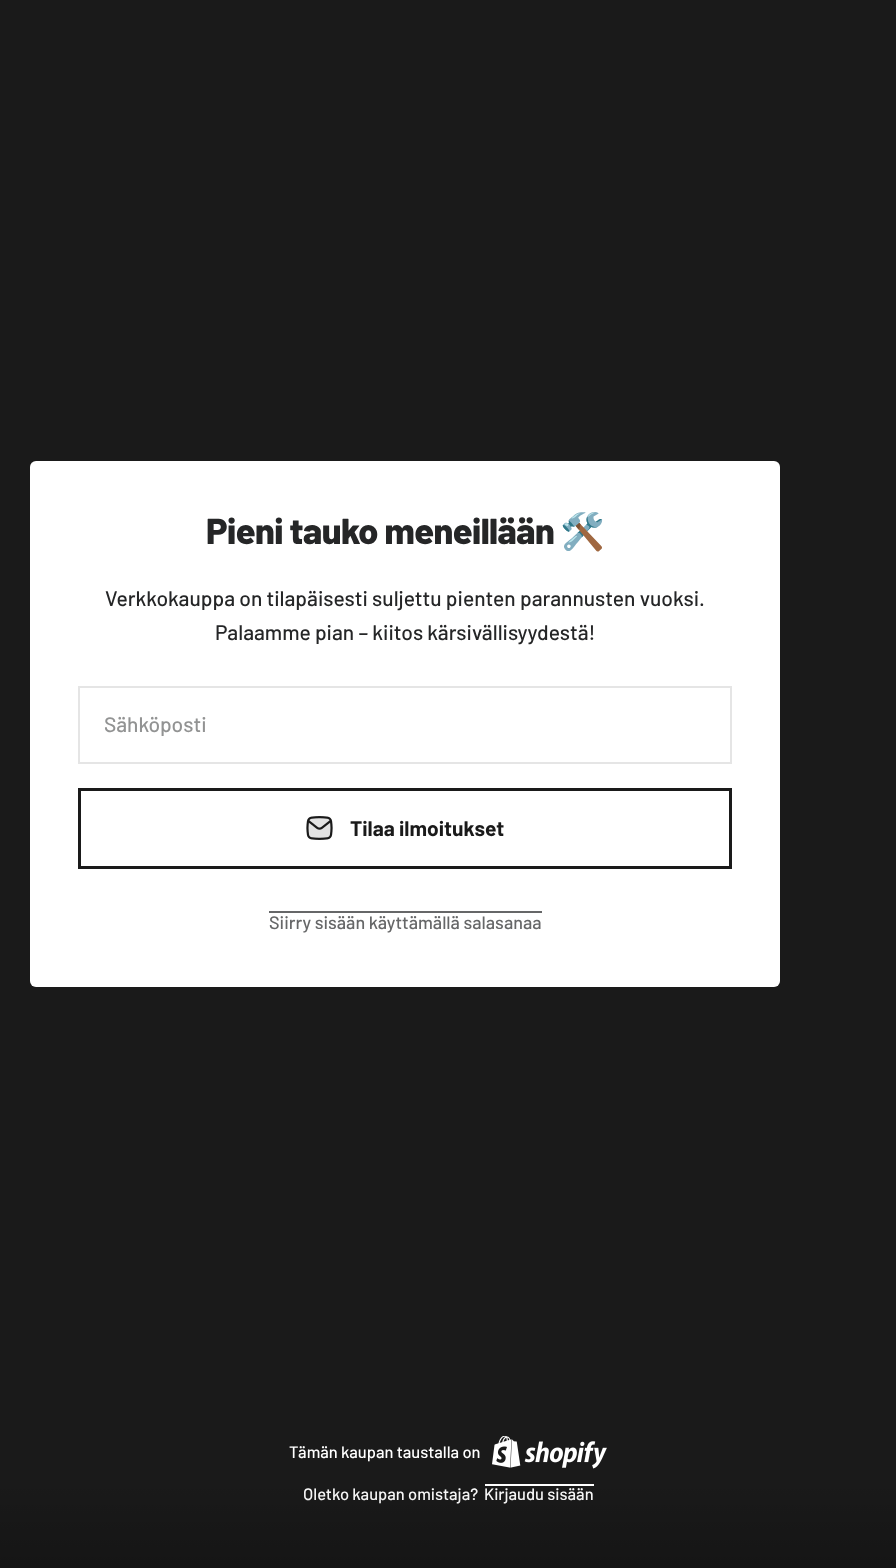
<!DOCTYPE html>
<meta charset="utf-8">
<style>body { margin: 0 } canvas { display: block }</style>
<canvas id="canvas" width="896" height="1568"></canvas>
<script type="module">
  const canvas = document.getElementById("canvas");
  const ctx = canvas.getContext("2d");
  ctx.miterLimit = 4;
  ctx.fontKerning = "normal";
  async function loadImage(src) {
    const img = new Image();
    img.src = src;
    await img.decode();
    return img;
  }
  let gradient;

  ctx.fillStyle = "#1a1a1a";
  ctx.fillRect(0, 0, 896, 1568);
  ctx.fillStyle = "#ffffff";
  ctx.beginPath();
  ctx.roundRect(30, 461, 750, 526, 6);
  ctx.fill();
  ctx.letterSpacing = "-0.5px";
  ctx.font = "800 36px Barlow";
  ctx.fillStyle = "#252627";
  ctx.fillText("Pieni tauko meneillään", 206, 544);
  ctx.font = "bold 36px Noto Color Emoji";
  ctx.fillText("🛠️", 560, 544);
  ctx.letterSpacing = "0px";
  ctx.font = "500 21px Barlow";
  ctx.fillText("Verkkokauppa on tilapäisesti suljettu pienten parannusten vuoksi.", 105, 606);
  ctx.fillText("Palaamme pian – kiitos kärsivällisyydestä!", 215, 640);
  ctx.strokeStyle = "#e5e5e5";
  ctx.lineWidth = 2;
  ctx.strokeRect(79, 687, 652, 76);
  ctx.fillStyle = "#929393";
  ctx.fillText("Sähköposti", 104, 732);
  ctx.strokeStyle = "#1a1a1a";
  ctx.lineWidth = 3;
  ctx.strokeRect(79.5, 789.5, 651, 78);
  ctx.drawImage(await loadImage("img1.png"), 306, 816, 27, 24);
  ctx.font = "bold 21px Barlow";
  ctx.fillStyle = "#1a1a1a";
  ctx.fillText("Tilaa ilmoitukset", 350, 836);
  ctx.font = "500 18px Barlow";
  ctx.fillStyle = "#666768";
  ctx.fillText("Siirry sisään käyttämällä salasanaa", 269, 929);
  ctx.fillRect(269, 911, 273, 2);
  ctx.font = "500 16.5px Barlow";
  ctx.fillStyle = "#ffffff";
  ctx.fillText("Tämän kaupan taustalla on", 289, 1458);
  ctx.drawImage(await loadImage("img2.png"), 492, 1436, 115, 33);
  ctx.fillText("Oletko kaupan omistaja?", 303, 1500);
  ctx.fillText("Kirjaudu sisään", 484, 1500);
  ctx.fillRect(485, 1484, 109, 2);
  gradient = ctx.createLinearGradient(449, 1479, 449, 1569);
  gradient.addColorStop(0, "rgba(0, 0, 0, 0)");
  gradient.addColorStop(1, "rgba(0, 0, 0, 0.2)");
  ctx.fillStyle = gradient;
  ctx.fillRect(0, 1489, 896, 79);
</script>
